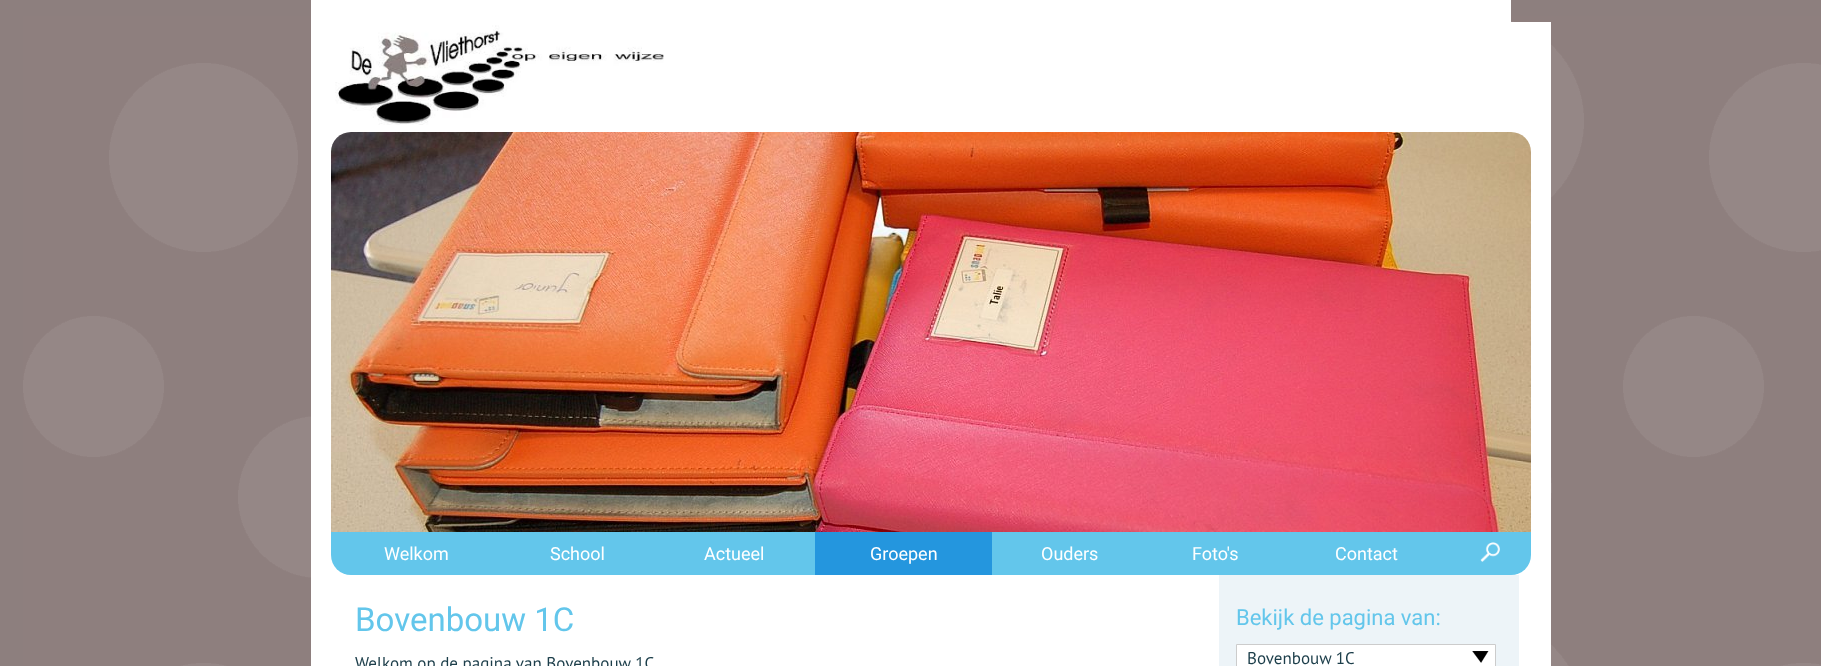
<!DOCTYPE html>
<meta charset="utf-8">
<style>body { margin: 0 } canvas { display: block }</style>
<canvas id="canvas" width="1821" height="666"></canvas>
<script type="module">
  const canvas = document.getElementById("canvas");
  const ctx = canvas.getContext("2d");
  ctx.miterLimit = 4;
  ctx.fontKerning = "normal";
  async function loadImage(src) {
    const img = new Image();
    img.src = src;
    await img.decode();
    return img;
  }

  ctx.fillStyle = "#8d7f7e";
  ctx.fillRect(0, 0, 1821, 666);
  ctx.drawImage(await loadImage("img1.png"), 23, 16, 1798, 650);
  ctx.fillStyle = "#ffffff";
  ctx.fillRect(311, 0, 1200, 22);
  ctx.fillRect(311, 22, 1240, 644);
  ctx.drawImage(await loadImage("img2.png"), 335, 25, 329, 100);
  ctx.drawImage(await loadImage("img3.png"), 331, 132, 1200, 400);
  ctx.fillStyle = "#63c6eb";
  ctx.beginPath();
  ctx.roundRect(331, 532, 1200, 43, [0, 0, 20, 20]);
  ctx.fill();
  ctx.font = "18px Roboto";
  ctx.fillStyle = "#ffffff";
  ctx.fillText("Welkom", 384, 560);
  ctx.fillText("School", 550, 560);
  ctx.fillText("Actueel", 704, 560);
  ctx.fillStyle = "#2496de";
  ctx.fillRect(815, 532, 177, 43);
  ctx.fillStyle = "#ffffff";
  ctx.fillText("Groepen", 870, 560);
  ctx.fillText("Ouders", 1041, 560);
  ctx.fillText("Foto's", 1192, 560);
  ctx.fillText("Contact", 1335, 560);
  ctx.drawImage(await loadImage("img4.png"), 1480, 542, 20, 20);
  ctx.font = "33px Roboto";
  ctx.fillStyle = "#63c6eb";
  ctx.fillText("Bovenbouw 1C", 355, 631);
  ctx.font = "17px PT Sans";
  ctx.fillStyle = "#1c3e4a";
  ctx.fillText("Welkom op de pagina van Bovenbouw 1C", 355, 669);
  ctx.fillStyle = "#edf4f8";
  ctx.fillRect(1219, 575, 300, 91);
  ctx.font = "22px Roboto";
  ctx.fillStyle = "#63c6eb";
  ctx.fillText("Bekijk de pagina van:", 1236, 625);
  ctx.fillStyle = "#ffffff";
  ctx.beginPath();
  ctx.rect(1236.5, 644.5, 259, 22);
  ctx.fill();
  ctx.strokeStyle = "#cccccc";
  ctx.stroke();
  ctx.font = "17px PT Sans";
  ctx.fillStyle = "#1c3e4a";
  ctx.fillText("Bovenbouw 1C", 1247, 664);
  ctx.drawImage(await loadImage("img5.png"), 1472, 651, 17, 12);
</script>
